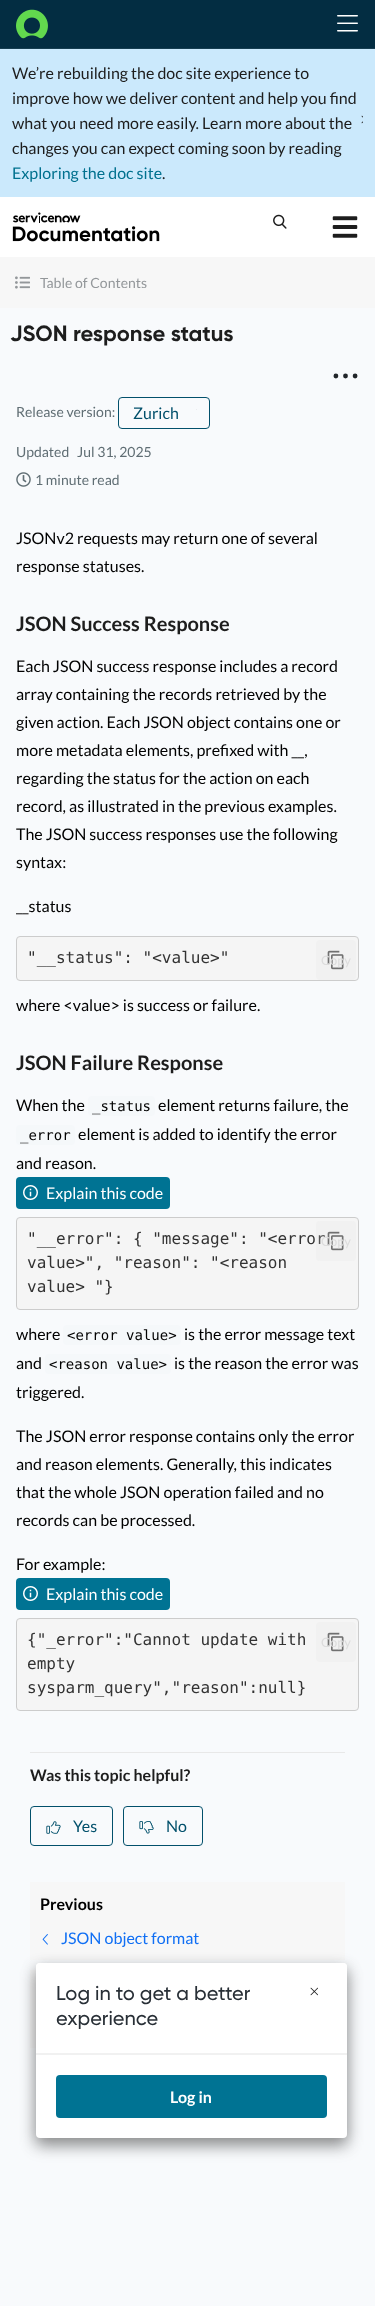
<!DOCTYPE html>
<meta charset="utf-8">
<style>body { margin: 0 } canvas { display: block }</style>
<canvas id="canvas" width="375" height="2306"></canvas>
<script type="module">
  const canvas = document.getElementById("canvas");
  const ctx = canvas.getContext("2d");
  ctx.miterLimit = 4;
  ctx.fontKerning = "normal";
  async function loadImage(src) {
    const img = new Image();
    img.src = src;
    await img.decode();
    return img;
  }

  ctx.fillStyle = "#ffffff";
  ctx.fillRect(0, 0, 375, 2306);
  ctx.fillStyle = "#032d42";
  ctx.fillRect(0, 0, 375, 48);
  ctx.fillStyle = "#173e51";
  ctx.fillRect(0, 48, 375, 1);
  ctx.drawImage(await loadImage("img1.png"), 16, 9, 32, 30);
  ctx.drawImage(await loadImage("img2.png"), 337, 15, 21, 17);
  ctx.fillStyle = "#cbe9fc";
  ctx.fillRect(0, 49, 375, 148);
  ctx.font = "16px Lato";
  ctx.fillStyle = "#1d1d1d";
  ctx.fillText("We’re rebuilding the doc site experience to", 12, 79);
  ctx.fillText("improve how we deliver content and help you find", 12, 104);
  ctx.fillText("what you need more easily. Learn more about the", 12, 129);
  ctx.fillText("changes you can expect coming soon by reading", 12, 154);
  ctx.fillStyle = "#00718f";
  ctx.fillText("Exploring the doc site", 12, 179);
  ctx.fillStyle = "#1d1d1d";
  ctx.fillText(".", 162, 179);
  ctx.drawImage(await loadImage("img3.png"), 361, 115, 2, 9);
  ctx.drawImage(await loadImage("img4.png"), 12, 212, 148, 30);
  ctx.drawImage(await loadImage("img5.png"), 273, 214, 14, 15);
  ctx.drawImage(await loadImage("img6.png"), 332, 216, 26, 22);
  ctx.fillStyle = "#f8fafc";
  ctx.fillRect(0, 308, 375, 1998);
  ctx.fillStyle = "#f7f7f7";
  ctx.fillRect(0, 257, 375, 51);
  ctx.drawImage(await loadImage("img7.png"), 15, 276, 15, 13);
  ctx.font = "14px Lato";
  ctx.fillStyle = "#93979a";
  ctx.fillText("Table of Contents", 40, 288);
  ctx.font = "bold 22px Gilroy";
  ctx.fillStyle = "#1d1d1d";
  ctx.fillText("JSON response status", 10, 341);
  ctx.fillStyle = "#212529";
  ctx.beginPath();
  ctx.arc(335.9, 376, 2.4, 0, Math.PI * 2);
  ctx.fill();
  ctx.beginPath();
  ctx.arc(345.5, 376, 2.4, 0, Math.PI * 2);
  ctx.fill();
  ctx.beginPath();
  ctx.arc(355.1, 376, 2.4, 0, Math.PI * 2);
  ctx.fill();
  ctx.font = "14px Lato";
  ctx.fillStyle = "#606e74";
  ctx.fillText("Release version:", 16, 417);
  ctx.beginPath();
  ctx.roundRect(118.5, 397.5, 91, 31, 3.5);
  ctx.strokeStyle = "#02506b";
  ctx.stroke();
  ctx.font = "16px Lato";
  ctx.fillStyle = "#02506b";
  ctx.fillText("Zurich", 133, 419);
  ctx.fillStyle = "#ebedef";
  ctx.fillRect(196, 409, 1, 1);
  ctx.font = "14px Lato";
  ctx.fillStyle = "#606e74";
  ctx.fillText("Updated", 16, 457);
  ctx.fillText("Jul 31, 2025", 77, 457);
  ctx.drawImage(await loadImage("img8.png"), 16, 472, 15, 15);
  ctx.fillText("1 minute read", 35, 485);
  ctx.font = "16px Lato";
  ctx.fillStyle = "#000000";
  ctx.fillText("JSONv2 requests may return one of several", 16, 544);
  ctx.fillText("response statuses.", 16, 572);
  ctx.font = "bold 20px Lato";
  ctx.fillStyle = "#1d1d1d";
  ctx.fillText("JSON Success Response", 16, 631);
  ctx.font = "16px Lato";
  ctx.fillStyle = "#000000";
  ctx.fillText("Each JSON success response includes a record", 16, 672);
  ctx.fillText("array containing the records retrieved by the", 16, 700);
  ctx.fillText("given action. Each JSON object contains one or", 16, 728);
  ctx.fillText("more metadata elements, prefixed with __,", 16, 756);
  ctx.fillText("regarding the status for the action on each", 16, 784);
  ctx.fillText("record, as illustrated in the previous examples.", 16, 812);
  ctx.fillText("The JSON success responses use the following", 16, 840);
  ctx.fillText("syntax:", 16, 868);
  ctx.fillText("__status", 16, 912);
  ctx.fillStyle = "#f5f5f5";
  ctx.beginPath();
  ctx.roundRect(16.5, 936.5, 342, 44, 3.5);
  ctx.fill();
  ctx.strokeStyle = "#cccccc";
  ctx.stroke();
  ctx.font = "16px DejaVu Sans Mono";
  ctx.fillStyle = "#333333";
  ctx.fillText("\"__status\": \"<value>\"", 27, 963);
  ctx.fillStyle = "#f1f1f1";
  ctx.beginPath();
  ctx.roundRect(316, 940, 40, 40, 4);
  ctx.fill();
  ctx.drawImage(await loadImage("img9.png"), 327, 950, 17, 20);
  ctx.font = "13px Lato";
  ctx.fillStyle = "#dcdcdc";
  ctx.fillText("Copy", 321, 965);
  ctx.font = "16px Lato";
  ctx.fillStyle = "#000000";
  ctx.fillText("where <value> is success or failure.", 16, 1011);
  ctx.font = "bold 20px Lato";
  ctx.fillStyle = "#1d1d1d";
  ctx.fillText("JSON Failure Response", 16, 1070);
  ctx.font = "16px Lato";
  ctx.fillStyle = "#000000";
  ctx.fillText("When the", 16, 1111);
  ctx.fillStyle = "#f5f8fa";
  ctx.beginPath();
  ctx.roundRect(88, 1096, 67, 20, 4);
  ctx.fill();
  ctx.font = "14px DejaVu Sans Mono";
  ctx.fillStyle = "#000000";
  ctx.fillText("_status", 92, 1111);
  ctx.font = "16px Lato";
  ctx.fillText("element returns failure, the", 158, 1111);
  ctx.fillStyle = "#f5f8fa";
  ctx.beginPath();
  ctx.roundRect(16, 1125, 59, 20, 4);
  ctx.fill();
  ctx.font = "14px DejaVu Sans Mono";
  ctx.fillStyle = "#000000";
  ctx.fillText("_error", 20, 1140);
  ctx.font = "16px Lato";
  ctx.fillText("element is added to identify the error", 78, 1140);
  ctx.fillText("and reason.", 16, 1169);
  ctx.fillStyle = "#007393";
  ctx.beginPath();
  ctx.roundRect(16, 1177, 154, 32, 4);
  ctx.fill();
  ctx.drawImage(await loadImage("img10.png"), 23, 1185, 15, 15);
  ctx.fillStyle = "#ffffff";
  ctx.fillText("Explain this code", 46, 1199);
  ctx.fillStyle = "#f5f5f5";
  ctx.beginPath();
  ctx.roundRect(16.5, 1217.5, 342, 92, 3.5);
  ctx.fill();
  ctx.stroke();
  ctx.font = "16px DejaVu Sans Mono";
  ctx.fillStyle = "#333333";
  ctx.fillText("\"__error\": { \"message\": \"<error", 27, 1244);
  ctx.fillText("value>\", \"reason\": \"<reason", 27, 1268);
  ctx.fillText("value> \"}", 27, 1292);
  ctx.fillStyle = "rgba(224, 224, 224, 0.2)";
  ctx.beginPath();
  ctx.roundRect(316, 1221, 40, 40, 4);
  ctx.fill();
  ctx.drawImage(await loadImage("img11.png"), 327, 1231, 17, 20);
  ctx.font = "13px Lato";
  ctx.fillStyle = "#dcdcdc";
  ctx.fillText("Copy", 321, 1246);
  ctx.font = "16px Lato";
  ctx.fillStyle = "#000000";
  ctx.fillText("where", 16, 1340);
  ctx.fillStyle = "#f5f8fa";
  ctx.beginPath();
  ctx.roundRect(63, 1325, 118, 20, 4);
  ctx.fill();
  ctx.font = "14px DejaVu Sans Mono";
  ctx.fillStyle = "#000000";
  ctx.fillText("<error value>", 67, 1340);
  ctx.font = "16px Lato";
  ctx.fillText("is the error message text", 184, 1340);
  ctx.fillText("and", 16, 1369);
  ctx.fillStyle = "#f5f8fa";
  ctx.beginPath();
  ctx.roundRect(45, 1354, 126, 20, 4);
  ctx.fill();
  ctx.font = "14px DejaVu Sans Mono";
  ctx.fillStyle = "#000000";
  ctx.fillText("<reason value>", 49, 1369);
  ctx.font = "16px Lato";
  ctx.fillText("is the reason the error was", 174, 1369);
  ctx.fillText("triggered.", 16, 1398);
  ctx.fillText("The JSON error response contains only the error", 16, 1442);
  ctx.fillText("and reason elements. Generally, this indicates", 16, 1470);
  ctx.fillText("that the whole JSON operation failed and no", 16, 1498);
  ctx.fillText("records can be processed.", 16, 1526);
  ctx.fillText("For example:", 16, 1570);
  ctx.fillStyle = "#007393";
  ctx.beginPath();
  ctx.roundRect(16, 1578, 154, 32, 4);
  ctx.fill();
  ctx.drawImage(await loadImage("img10.png"), 23, 1586, 15, 15);
  ctx.fillStyle = "#ffffff";
  ctx.fillText("Explain this code", 46, 1600);
  ctx.fillStyle = "#f5f5f5";
  ctx.beginPath();
  ctx.roundRect(16.5, 1618.5, 342, 92, 3.5);
  ctx.fill();
  ctx.stroke();
  ctx.font = "16px DejaVu Sans Mono";
  ctx.fillStyle = "#333333";
  ctx.fillText("{\"_error\":\"Cannot update with", 27, 1645);
  ctx.fillText("empty", 27, 1669);
  ctx.fillText("sysparm_query\",\"reason\":null}", 27, 1693);
  ctx.fillStyle = "#f1f1f1";
  ctx.beginPath();
  ctx.roundRect(316, 1622, 40, 40, 4);
  ctx.fill();
  ctx.drawImage(await loadImage("img9.png"), 327, 1632, 17, 20);
  ctx.font = "13px Lato";
  ctx.fillStyle = "#dcdcdc";
  ctx.fillText("Copy", 321, 1647);
  ctx.fillStyle = "#e8e8e8";
  ctx.fillRect(30, 1752, 315, 1);
  ctx.font = "bold 16px Lato";
  ctx.fillStyle = "#1d1d1d";
  ctx.fillText("Was this topic helpful?", 30, 1781);
  ctx.beginPath();
  ctx.roundRect(30.5, 1806.5, 82, 39, 3.5);
  ctx.strokeStyle = "#02506b";
  ctx.stroke();
  ctx.drawImage(await loadImage("img12.png"), 46, 1821, 15, 13);
  ctx.font = "16px Lato";
  ctx.fillStyle = "#02506b";
  ctx.fillText("Yes", 73, 1832);
  ctx.beginPath();
  ctx.roundRect(123.5, 1806.5, 79, 39, 3.5);
  ctx.stroke();
  ctx.drawImage(await loadImage("img13.png"), 139, 1821, 15, 13);
  ctx.fillText("No", 166, 1832);
  ctx.fillStyle = "#f7f7f7";
  ctx.fillRect(30, 1882, 315, 78);
  ctx.font = "bold 16px Lato";
  ctx.fillStyle = "#000000";
  ctx.fillText("Previous", 40, 1910);
  ctx.drawImage(await loadImage("img14.png"), 42, 1934, 6, 11);
  ctx.font = "16px Lato";
  ctx.fillStyle = "#106ff4";
  ctx.fillText("JSON object format", 61, 1944);
  ctx.fillStyle = "#f7f7f7";
  ctx.fillRect(30, 1970, 6, 78);
  ctx.fillStyle = "rgba(0, 0, 0, 0.25)";
  ctx.filter = "blur(7.5px)";
  ctx.beginPath();
  ctx.roundRect(36, 1968, 311, 175, 4);
  ctx.fill();
  ctx.filter = "none";
  ctx.fillStyle = "rgba(0, 0, 0, 0.27)";
  ctx.filter = "blur(8px)";
  ctx.beginPath();
  ctx.roundRect(36, 1971, 311, 175, 4);
  ctx.fill();
  ctx.filter = "none";
  ctx.fillStyle = "#ffffff";
  ctx.beginPath();
  ctx.roundRect(36, 1963, 311, 175, 4);
  ctx.fill();
  ctx.beginPath();
  ctx.roundRect(36, 1963, 311, 91, [4, 4, 0, 0]);
  ctx.fill();
  ctx.fillStyle = "#f1f1f1";
  ctx.fillRect(36, 2053, 311, 2);
  ctx.font = "500 20px Gilroy";
  ctx.fillStyle = "#282f36";
  ctx.fillText("Log in to get a better", 56, 2000);
  ctx.fillText("experience", 56, 2025);
  ctx.drawImage(await loadImage("img15.png"), 310, 1987, 8, 9);
  ctx.fillStyle = "#007393";
  ctx.beginPath();
  ctx.roundRect(56, 2075, 271, 43, 4);
  ctx.fill();
  ctx.font = "bold 16px Lato";
  ctx.fillStyle = "#ffffff";
  ctx.fillText("Log in", 170, 2103);
</script>
